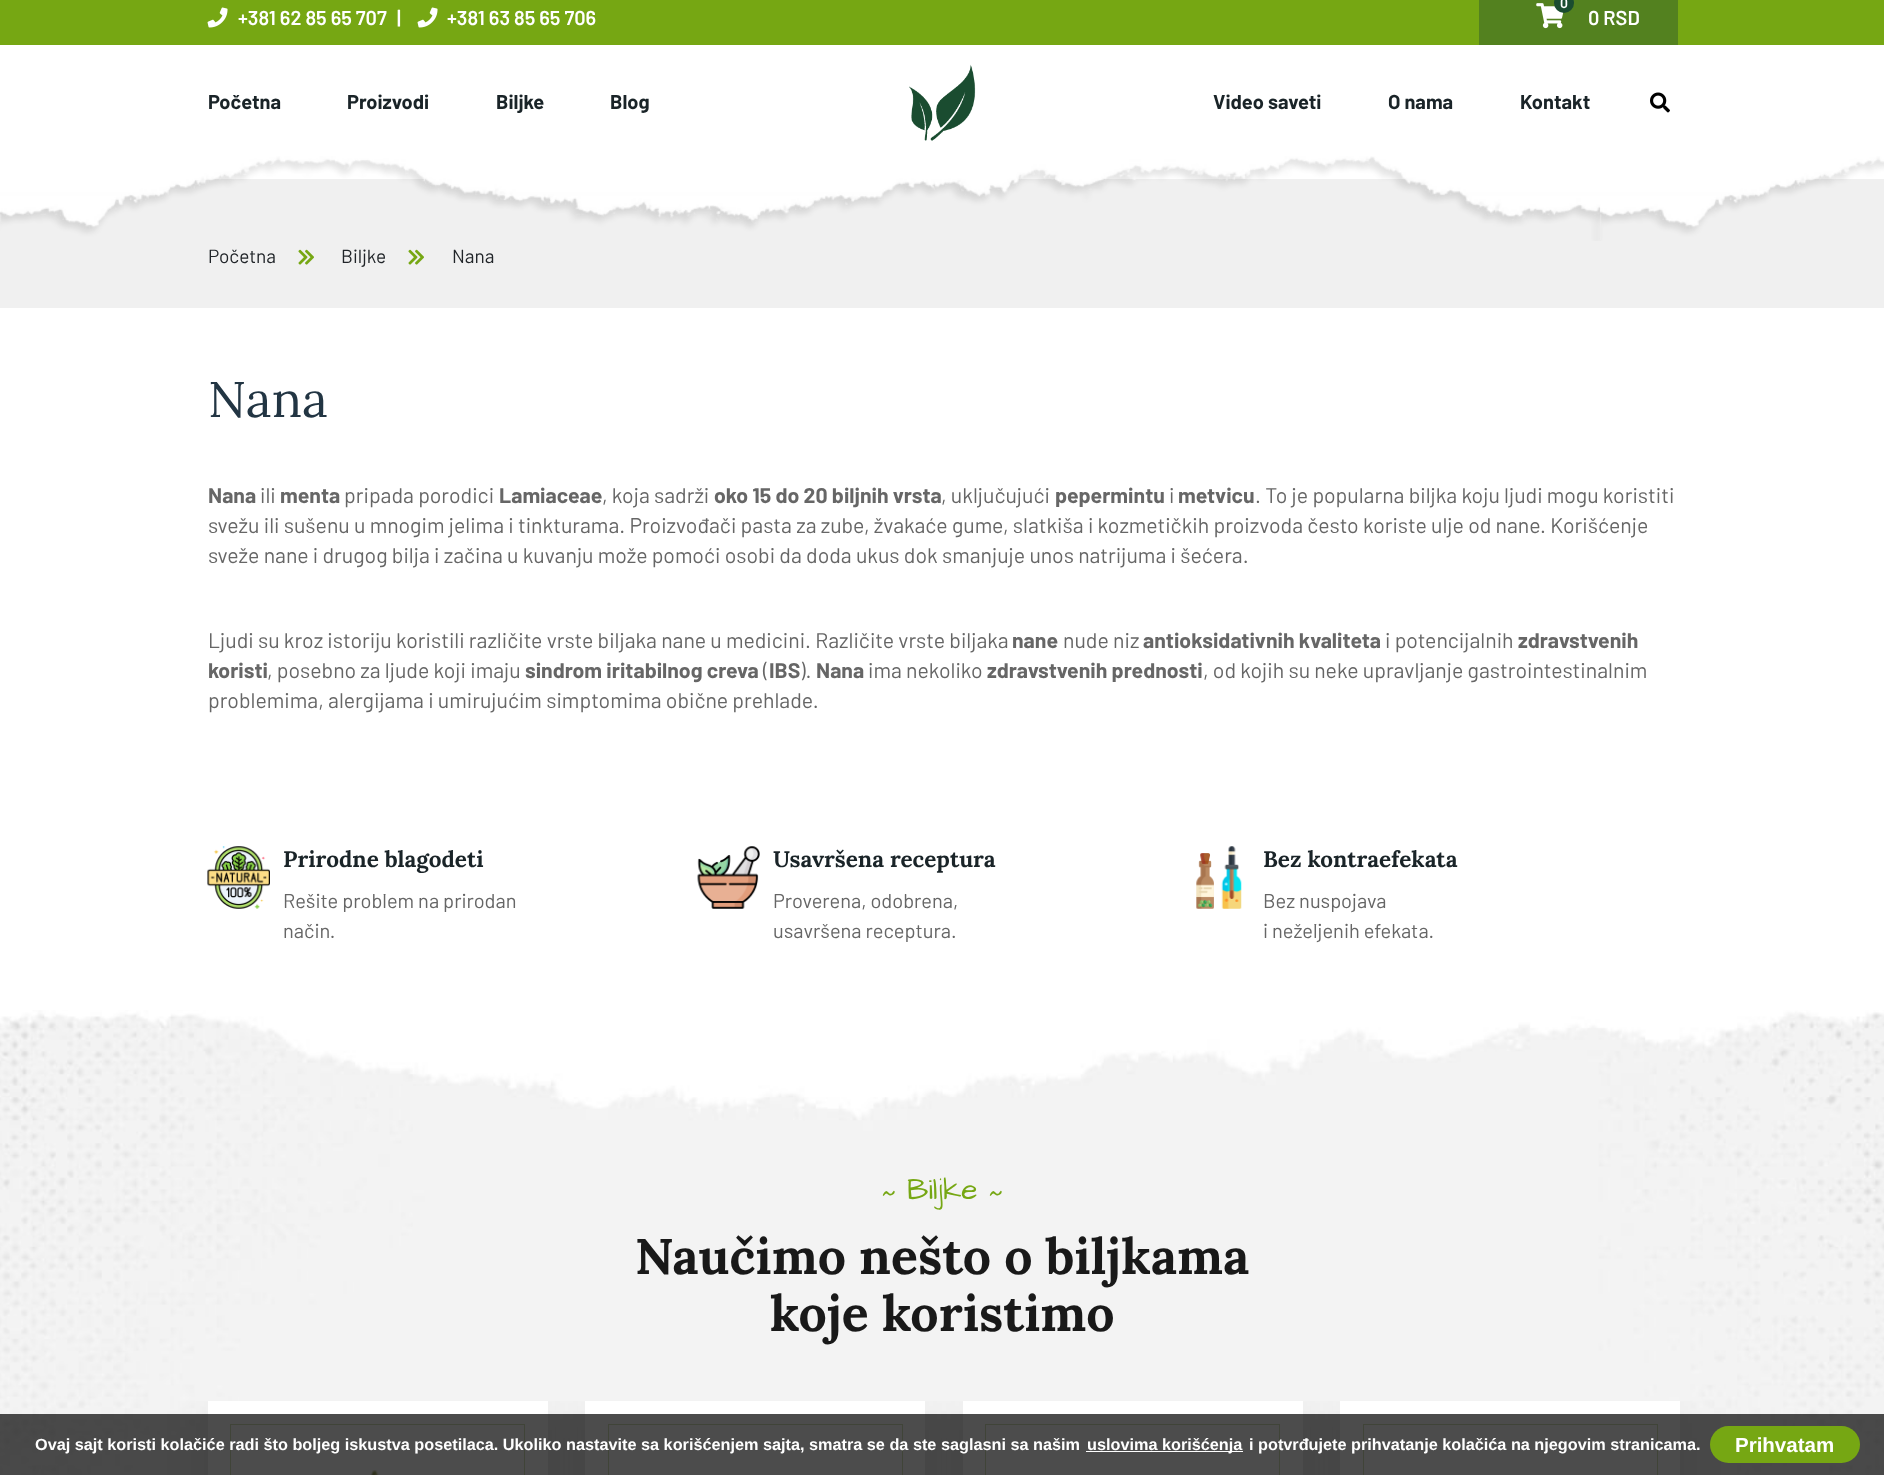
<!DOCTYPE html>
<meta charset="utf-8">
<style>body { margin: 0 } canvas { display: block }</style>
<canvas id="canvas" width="1884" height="1475"></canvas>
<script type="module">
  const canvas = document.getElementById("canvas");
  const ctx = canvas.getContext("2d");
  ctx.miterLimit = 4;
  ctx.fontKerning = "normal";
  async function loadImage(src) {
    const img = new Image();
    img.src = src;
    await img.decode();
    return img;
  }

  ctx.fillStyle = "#ffffff";
  ctx.fillRect(0, 0, 1884, 1475);
  ctx.fillStyle = "#76a713";
  ctx.fillRect(0, 0, 1884, 45);
  ctx.drawImage(await loadImage("img1.png"), 207, 7, 21, 21);
  ctx.font = "600 20px Barlow";
  ctx.fillStyle = "#ffffff";
  ctx.fillText("+381 62 85 65 707", 238, 25);
  ctx.fillText("|", 397, 25);
  ctx.drawImage(await loadImage("img1.png"), 417, 7, 21, 21);
  ctx.fillText("+381 63 85 65 706", 447, 25);
  ctx.fillStyle = "#53811f";
  ctx.fillRect(1479, 0, 199, 45);
  ctx.drawImage(await loadImage("img2.png"), 1536, 3, 28, 26);
  ctx.fillStyle = "#1a4c30";
  ctx.beginPath();
  ctx.arc(1564, 3, 10, 0, Math.PI * 2);
  ctx.fill();
  ctx.font = "600 14px Barlow";
  ctx.fillStyle = "#ffffff";
  ctx.fillText("0", 1560, 8);
  ctx.font = "600 20px Barlow";
  ctx.fillText("0 RSD", 1588, 25);
  ctx.drawImage(await loadImage("img3.png"), 909, 64, 67, 77);
  ctx.drawImage(await loadImage("img4.png"), 1650, 92, 20, 21);
  ctx.font = "bold 20px Barlow";
  ctx.fillStyle = "#1a2428";
  ctx.fillText("Početna", 208, 109);
  ctx.fillText("Proizvodi", 347, 109);
  ctx.fillText("Biljke", 496, 109);
  ctx.fillText("Blog", 610, 109);
  ctx.fillText("Video saveti", 1213, 109);
  ctx.fillText("O nama", 1388, 109);
  ctx.fillText("Kontakt", 1520, 109);
  ctx.fillStyle = "#f0f0f0";
  ctx.fillRect(0, 179, 1884, 129);
  ctx.drawImage(await loadImage("img5.png"), 0, 156, 1884, 85);
  ctx.font = "19px Barlow";
  ctx.fillStyle = "#212529";
  ctx.fillText("Početna", 208, 263);
  ctx.drawImage(await loadImage("img6.png"), 298, 249, 16, 16);
  ctx.fillText("Biljke", 341, 263);
  ctx.drawImage(await loadImage("img6.png"), 408, 249, 16, 16);
  ctx.fillText("Nana", 452, 263);
  ctx.font = "50px Lora";
  ctx.fillStyle = "#223543";
  ctx.fillText("Nana", 208, 417);
  ctx.font = "bold 21.25px Barlow";
  ctx.fillStyle = "#666666";
  ctx.fillText("Nana", 208, 503);
  ctx.font = "21.25px Barlow";
  ctx.fillText("ili", 260, 503);
  ctx.font = "bold 21.25px Barlow";
  ctx.fillText("menta", 280, 503);
  ctx.font = "21.25px Barlow";
  ctx.fillText("pripada porodici", 344, 503);
  ctx.font = "bold 21.25px Barlow";
  ctx.fillText("Lamiaceae", 499, 503);
  ctx.font = "21.25px Barlow";
  ctx.fillText(", koja sadrži", 602, 503);
  ctx.font = "bold 21.25px Barlow";
  ctx.fillText("oko 15 do 20 biljnih vrsta", 714, 503);
  ctx.font = "21.25px Barlow";
  ctx.fillText(", uključujući", 941, 503);
  ctx.font = "bold 21.25px Barlow";
  ctx.fillText("pepermintu", 1055, 503);
  ctx.font = "21.25px Barlow";
  ctx.fillText("i", 1169, 503);
  ctx.font = "bold 21.25px Barlow";
  ctx.fillText("metvicu", 1178, 503);
  ctx.font = "21.25px Barlow";
  ctx.fillText(". To je popularna biljka koju ljudi mogu koristiti", 1255, 503);
  ctx.fillText("svežu ili sušenu u mnogim jelima i tinkturama. Proizvođači pasta za zube, žvakaće gume, slatkiša i kozmetičkih proizvoda često koriste ulje od nane. Korišćenje", 208, 533);
  ctx.fillText("sveže nane i drugog bilja i začina u kuvanju može pomoći osobi da doda ukus dok smanjuje unos natrijuma i šećera.", 208, 563);
  ctx.fillText("Ljudi su kroz istoriju koristili različite vrste biljaka nane u medicini. Različite vrste biljaka", 208, 648);
  ctx.font = "bold 21.25px Barlow";
  ctx.fillText("nane", 1012, 648);
  ctx.font = "21.25px Barlow";
  ctx.fillText("nude niz", 1063, 648);
  ctx.font = "bold 21.25px Barlow";
  ctx.fillText("antioksidativnih kvaliteta", 1143, 648);
  ctx.font = "21.25px Barlow";
  ctx.fillText("i potencijalnih", 1385, 648);
  ctx.font = "bold 21.25px Barlow";
  ctx.fillText("zdravstvenih", 1518, 648);
  ctx.fillText("koristi", 208, 678);
  ctx.font = "21.25px Barlow";
  ctx.fillText(", posebno za ljude koji imaju", 267, 678);
  ctx.font = "bold 21.25px Barlow";
  ctx.fillText("sindrom iritabilnog creva", 525, 678);
  ctx.font = "21.25px Barlow";
  ctx.fillText("(", 763, 678);
  ctx.font = "bold 21.25px Barlow";
  ctx.fillText("IBS", 769, 678);
  ctx.font = "21.25px Barlow";
  ctx.fillText(").", 800, 678);
  ctx.font = "bold 21.25px Barlow";
  ctx.fillText("Nana", 816, 678);
  ctx.font = "21.25px Barlow";
  ctx.fillText("ima nekoliko", 868, 678);
  ctx.font = "bold 21.25px Barlow";
  ctx.fillText("zdravstvenih prednosti", 987, 678);
  ctx.font = "21.25px Barlow";
  ctx.fillText(", od kojih su neke upravljanje gastrointestinalnim", 1203, 678);
  ctx.fillText("problemima, alergijama i umirujućim simptomima obične prehlade.", 208, 708);
  ctx.drawImage(await loadImage("img7.png"), 207, 846, 63, 63);
  ctx.font = "bold 22.5px Lora";
  ctx.fillStyle = "#1a2428";
  ctx.fillText("Prirodne blagodeti", 283, 867);
  ctx.font = "20px Barlow";
  ctx.fillStyle = "#666666";
  ctx.fillText("Rešite problem na prirodan", 283, 908);
  ctx.fillText("način.", 283, 938);
  ctx.drawImage(await loadImage("img8.png"), 697, 846, 63, 63);
  ctx.font = "bold 22.5px Lora";
  ctx.fillStyle = "#1a2428";
  ctx.fillText("Usavršena receptura", 773, 867);
  ctx.font = "20px Barlow";
  ctx.fillStyle = "#666666";
  ctx.fillText("Proverena, odobrena,", 773, 908);
  ctx.fillText("usavršena receptura.", 773, 938);
  ctx.drawImage(await loadImage("img9.png"), 1196, 846, 46, 63);
  ctx.font = "bold 22.5px Lora";
  ctx.fillStyle = "#1a2428";
  ctx.fillText("Bez kontraefekata", 1263, 867);
  ctx.font = "20px Barlow";
  ctx.fillStyle = "#666666";
  ctx.fillText("Bez nuspojava", 1263, 908);
  ctx.fillText("i neželjenih efekata.", 1263, 938);
  ctx.drawImage(await loadImage("img10.png"), 0, 1010, 1884, 465);
  ctx.font = "30px Architects Daughter";
  ctx.fillStyle = "#76a713";
  ctx.fillText("~", 882, 1210);
  ctx.fillText("Biljke", 907, 1199);
  ctx.fillText("~", 989, 1210);
  ctx.font = "bold 50px Lora";
  ctx.fillStyle = "#191919";
  ctx.fillText("Naučimo nešto o biljkama", 635, 1274);
  ctx.fillText("koje koristimo", 770, 1331);
  ctx.save();
  ctx.beginPath();
  ctx.rect(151, 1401, 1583, 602);
  ctx.clip();
  ctx.fillStyle = "rgba(12, 12, 12, 0.06)";
  ctx.filter = "blur(24px)";
  ctx.beginPath();
  ctx.rect(208, 1411, 340, 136);
  ctx.fill();
  ctx.filter = "none";
  ctx.restore();
  ctx.fillStyle = "#ffffff";
  ctx.fillRect(208, 1401, 340, 74);
  ctx.strokeStyle = "#d7e5bb";
  ctx.strokeRect(230.5, 1424.5, 294, 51);
  ctx.drawImage(await loadImage("img11.png"), 370, 1470, 9, 5);
  ctx.save();
  ctx.beginPath();
  ctx.rect(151, 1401, 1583, 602);
  ctx.clip();
  ctx.fillStyle = "rgba(12, 12, 12, 0.06)";
  ctx.filter = "blur(24px)";
  ctx.beginPath();
  ctx.rect(585, 1411, 340, 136);
  ctx.fill();
  ctx.filter = "none";
  ctx.restore();
  ctx.fillRect(585, 1401, 340, 74);
  ctx.strokeRect(608.5, 1424.5, 294, 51);
  ctx.drawImage(await loadImage("img12.png"), 727, 1474, 2, 1);
  ctx.save();
  ctx.beginPath();
  ctx.rect(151, 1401, 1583, 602);
  ctx.clip();
  ctx.fillStyle = "rgba(12, 12, 12, 0.06)";
  ctx.filter = "blur(24px)";
  ctx.beginPath();
  ctx.rect(963, 1411, 340, 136);
  ctx.fill();
  ctx.filter = "none";
  ctx.restore();
  ctx.fillRect(963, 1401, 340, 74);
  ctx.strokeRect(985.5, 1424.5, 294, 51);
  ctx.save();
  ctx.beginPath();
  ctx.rect(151, 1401, 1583, 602);
  ctx.clip();
  ctx.fillStyle = "rgba(12, 12, 12, 0.06)";
  ctx.filter = "blur(24px)";
  ctx.beginPath();
  ctx.rect(1340, 1411, 340, 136);
  ctx.fill();
  ctx.filter = "none";
  ctx.restore();
  ctx.fillRect(1340, 1401, 340, 74);
  ctx.strokeRect(1363.5, 1424.5, 294, 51);
  ctx.fillStyle = "rgba(0, 0, 0, 0.7)";
  ctx.fillRect(0, 1414, 1884, 61);
  ctx.font = "bold 16.25px Liberation Sans";
  ctx.fillStyle = "#ffffff";
  ctx.fillText("Ovaj sajt koristi kolačiće radi što boljeg iskustva posetilaca. Ukoliko nastavite sa korišćenjem sajta, smatra se da ste saglasni sa našim", 35, 1450);
  ctx.fillRect(1086, 1451, 157, 1);
  ctx.fillText("uslovima korišćenja", 1087, 1450);
  ctx.fillText("i potvrđujete prihvatanje kolačića na njegovim stranicama.", 1249, 1450);
  ctx.fillStyle = "#76a713";
  ctx.beginPath();
  ctx.roundRect(1710, 1426, 150, 37, 18.5);
  ctx.fill();
  ctx.font = "bold 20.5px Liberation Sans";
  ctx.fillStyle = "#ffffff";
  ctx.fillText("Prihvatam", 1735, 1452);
</script>
